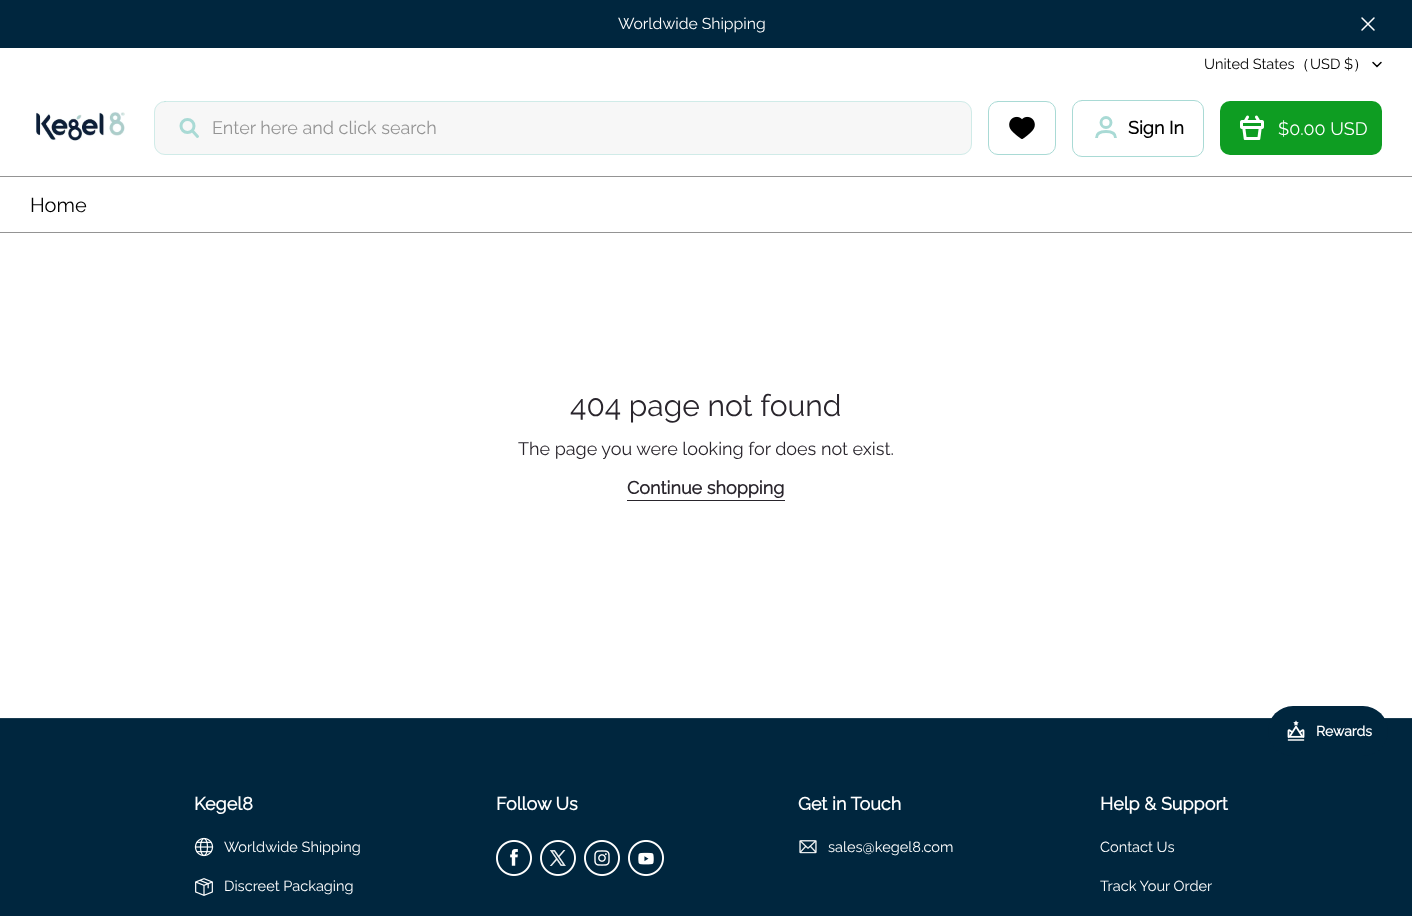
<!DOCTYPE html>
<meta charset="utf-8">
<style>body { margin: 0 } canvas { display: block }</style>
<canvas id="canvas" width="1412" height="916"></canvas>
<script type="module">
  const canvas = document.getElementById("canvas");
  const ctx = canvas.getContext("2d");
  ctx.miterLimit = 4;
  ctx.fontKerning = "normal";
  async function loadImage(src) {
    const img = new Image();
    img.src = src;
    await img.decode();
    return img;
  }

  ctx.fillStyle = "#ffffff";
  ctx.fillRect(0, 0, 1412, 916);
  ctx.fillStyle = "#00263e";
  ctx.fillRect(0, 0, 1412, 48);
  ctx.font = "100 15.75px Raleway";
  ctx.fillStyle = "#ffffff";
  ctx.fillText("Worldwide Shipping", 618, 29);
  ctx.beginPath();
  ctx.moveTo(1362, 30);
  ctx.lineTo(1374, 18);
  ctx.moveTo(1362, 18);
  ctx.lineTo(1374, 30);
  ctx.strokeStyle = "#ffffff";
  ctx.lineWidth = 1.5;
  ctx.lineCap = "round";
  ctx.lineJoin = "round";
  ctx.stroke();
  ctx.font = "100 14.6px Raleway";
  ctx.fillStyle = "#000000";
  ctx.fillText("United States", 1204, 69);
  ctx.font = "500 14.6px WenQuanYi Zen Hei";
  ctx.fillText("（", 1295, 69);
  ctx.font = "100 14.6px Raleway";
  ctx.fillText("USD $", 1310, 69);
  ctx.font = "500 14.6px WenQuanYi Zen Hei";
  ctx.fillText("）", 1353, 69);
  ctx.beginPath();
  ctx.moveTo(1373, 62.5);
  ctx.lineTo(1377, 66.5);
  ctx.lineTo(1381, 62.5);
  ctx.strokeStyle = "#000000";
  ctx.lineJoin = "miter";
  ctx.stroke();
  ctx.drawImage(await loadImage("img1.png"), 36, 112, 89, 29);
  ctx.fillStyle = "#f7f7f7";
  ctx.beginPath();
  ctx.roundRect(154, 101, 818, 54, 11);
  ctx.fill();
  ctx.beginPath();
  ctx.arc(187.5, 126, 6.5, 0, Math.PI * 2);
  ctx.strokeStyle = "#a9dad5";
  ctx.lineWidth = 3;
  ctx.stroke();
  ctx.beginPath();
  ctx.moveTo(193, 131.5);
  ctx.lineTo(197.5, 136.5);
  ctx.stroke();
  ctx.beginPath();
  ctx.roundRect(154.5, 101.5, 817, 53, 10.5);
  ctx.strokeStyle = "#ffffff";
  ctx.lineWidth = 1;
  ctx.stroke();
  ctx.beginPath();
  ctx.roundRect(154.5, 101.5, 817, 53, 10.5);
  ctx.strokeStyle = "rgba(169, 218, 213, 0.55)";
  ctx.stroke();
  ctx.font = "100 18px Raleway";
  ctx.fillStyle = "#949494";
  ctx.fillText("Enter here and click search", 212, 134);
  ctx.beginPath();
  ctx.roundRect(988.5, 101.5, 67, 53, 9.5);
  ctx.strokeStyle = "#a9dad5";
  ctx.stroke();
  ctx.drawImage(await loadImage("img2.png"), 1009, 116, 26, 23);
  ctx.beginPath();
  ctx.roundRect(1072.5, 100.5, 131, 56, 9.5);
  ctx.stroke();
  ctx.beginPath();
  ctx.arc(1106, 122.5, 5, 0, Math.PI * 2);
  ctx.lineWidth = 2.9;
  ctx.stroke();
  ctx.beginPath();
  ctx.moveTo(1115.5, 138);
  ctx.bezierCurveTo(1115.5, 136.5, 1115.5, 131.5, 1106, 131.5);
  ctx.bezierCurveTo(1096.5, 131.5, 1096.5, 136.5, 1096.5, 138);
  ctx.lineCap = "butt";
  ctx.stroke();
  ctx.font = "bold 18px Raleway";
  ctx.fillStyle = "#000000";
  ctx.fillText("Sign In", 1128, 134);
  ctx.fillStyle = "#0e9d22";
  ctx.beginPath();
  ctx.roundRect(1220, 101, 162, 54, 10);
  ctx.fill();
  ctx.drawImage(await loadImage("img3.png"), 1240, 115, 24, 25);
  ctx.font = "100 18px Raleway";
  ctx.fillStyle = "#ffffff";
  ctx.fillText("$0.00 USD", 1278, 135);
  ctx.fillStyle = "#949494";
  ctx.fillRect(0, 176, 1412, 1);
  ctx.font = "100 20px Raleway";
  ctx.fillStyle = "#000000";
  ctx.fillText("Home", 30, 212);
  ctx.fillStyle = "#949494";
  ctx.fillRect(0, 232, 1412, 1);
  ctx.font = "100 30px Raleway";
  ctx.fillStyle = "#29252c";
  ctx.fillText("404 page not found", 570, 416);
  ctx.font = "100 18px Raleway";
  ctx.fillText("The page you were looking for does not exist.", 518, 455);
  ctx.font = "bold 18px Raleway";
  ctx.fillText("Continue shopping", 627, 494);
  ctx.fillRect(627, 500, 158, 1);
  ctx.fillStyle = "#00263e";
  ctx.fillRect(0, 719, 1412, 197);
  ctx.fillStyle = "#1a3c51";
  ctx.fillRect(0, 718, 1412, 1);
  ctx.fillStyle = "#00263e";
  ctx.beginPath();
  ctx.roundRect(1268, 706, 120, 50, 25);
  ctx.fill();
  ctx.drawImage(await loadImage("img4.png"), 1287, 720, 18, 21);
  ctx.font = "bold 14px Raleway";
  ctx.fillStyle = "#ffffff";
  ctx.fillText("Rewards", 1316, 736);
  ctx.font = "bold 18px Raleway";
  ctx.fillText("Kegel8", 194, 810);
  ctx.drawImage(await loadImage("img5.png"), 194, 837, 20, 20);
  ctx.font = "100 14.6px Raleway";
  ctx.fillText("Worldwide Shipping", 224, 852);
  ctx.drawImage(await loadImage("img6.png"), 195, 878, 18, 18);
  ctx.fillText("Discreet Packaging", 224, 891);
  ctx.font = "bold 18px Raleway";
  ctx.fillText("Follow Us", 496, 810);
  ctx.drawImage(await loadImage("img7.png"), 496, 840, 36, 36);
  ctx.drawImage(await loadImage("img8.png"), 540, 840, 36, 36);
  ctx.drawImage(await loadImage("img9.png"), 584, 840, 36, 36);
  ctx.drawImage(await loadImage("img10.png"), 628, 840, 36, 36);
  ctx.fillText("Get in Touch", 798, 810);
  ctx.drawImage(await loadImage("img11.png"), 799, 840, 18, 14);
  ctx.font = "100 14.6px Raleway";
  ctx.fillText("sales@kegel8.com", 828, 852);
  ctx.font = "bold 18px Raleway";
  ctx.fillText("Help & Support", 1100, 810);
  ctx.font = "100 14.6px Raleway";
  ctx.fillText("Contact Us", 1100, 852);
  ctx.fillText("Track Your Order", 1100, 891);
</script>
